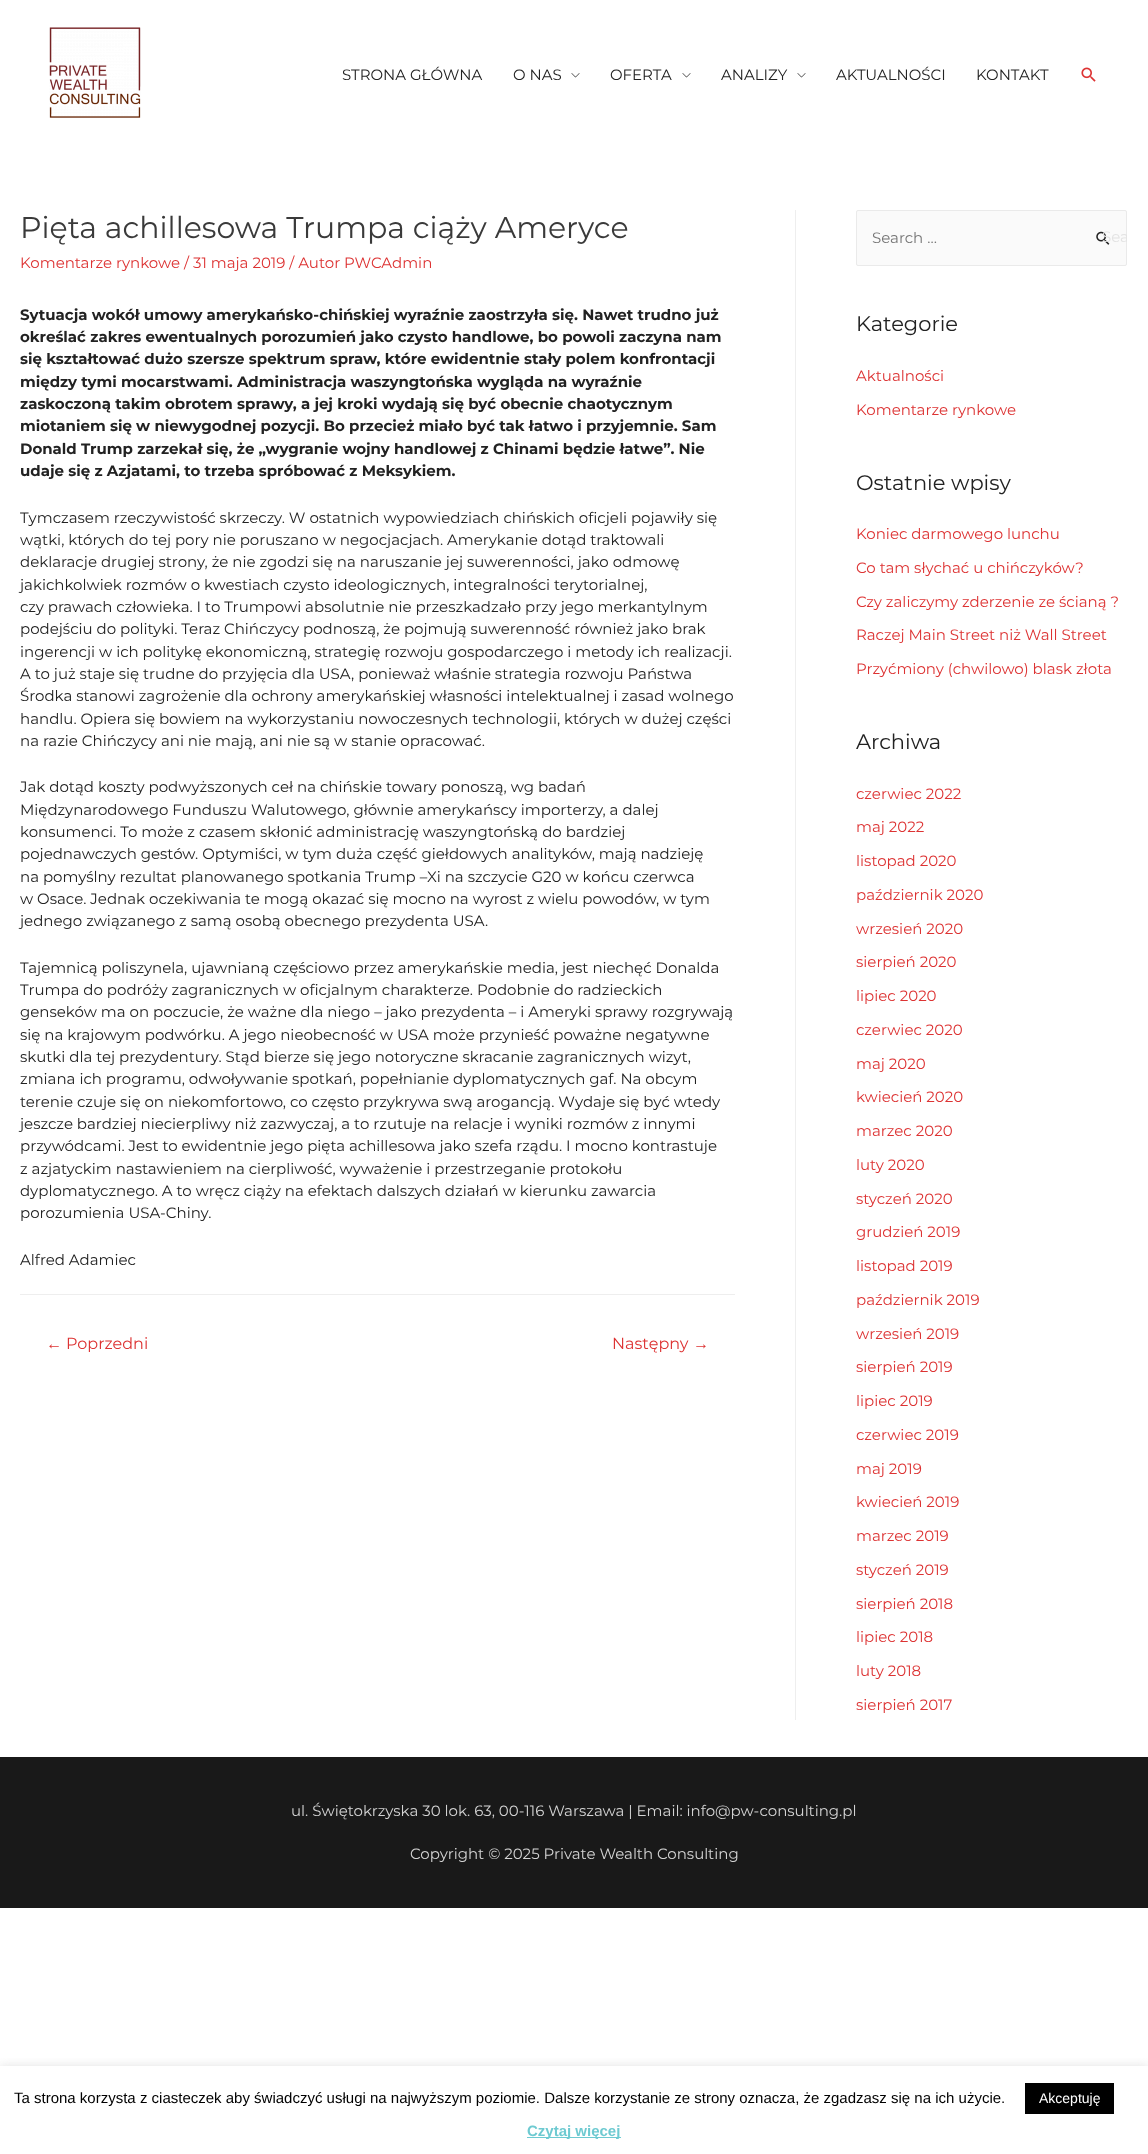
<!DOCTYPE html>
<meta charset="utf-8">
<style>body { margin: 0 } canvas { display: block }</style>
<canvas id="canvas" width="1148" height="2154"></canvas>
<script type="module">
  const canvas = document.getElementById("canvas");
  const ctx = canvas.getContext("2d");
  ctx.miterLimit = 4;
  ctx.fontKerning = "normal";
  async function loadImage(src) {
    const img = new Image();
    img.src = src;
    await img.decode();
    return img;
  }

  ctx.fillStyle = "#ffffff";
  ctx.fillRect(0, 0, 1148, 2154);
  ctx.drawImage(await loadImage("img1.png"), 49, 27, 92, 91);
  ctx.font = "15px Montserrat";
  ctx.fillStyle = "#222222";
  ctx.fillText("STRONA GŁÓWNA", 342, 80);
  ctx.fillText("O NAS", 513, 80);
  ctx.drawImage(await loadImage("img2.png"), 571, 73, 9, 5);
  ctx.fillText("OFERTA", 610, 80);
  ctx.drawImage(await loadImage("img2.png"), 682, 73, 9, 5);
  ctx.fillText("ANALIZY", 721, 80);
  ctx.drawImage(await loadImage("img2.png"), 797, 73, 9, 5);
  ctx.fillText("AKTUALNOŚCI", 836, 80);
  ctx.fillText("KONTAKT", 976, 80);
  ctx.drawImage(await loadImage("img3.png"), 1081, 67, 15, 15);
  ctx.font = "30px Montserrat";
  ctx.fillStyle = "#3a3a3a";
  ctx.fillText("Pięta achillesowa Trumpa ciąży Ameryce", 20, 238);
  ctx.font = "15px Montserrat";
  ctx.fillStyle = "#dd3333";
  ctx.fillText("Komentarze rynkowe / 31 maja 2019 / Autor PWCAdmin", 20, 268);
  ctx.font = "bold 15px Montserrat";
  ctx.fillStyle = "#222222";
  ctx.fillText("Sytuacja wokół umowy amerykańsko-chińskiej wyraźnie zaostrzyła się. Nawet trudno już", 20, 320);
  ctx.fillText("określać zakres ewentualnych porozumień jako czysto handlowe, bo powoli zaczyna nam", 20, 342);
  ctx.fillText("się kształtować dużo szersze spektrum spraw, które ewidentnie stały polem konfrontacji", 20, 364);
  ctx.fillText("między tymi mocarstwami. Administracja waszyngtońska wygląda na wyraźnie", 20, 387);
  ctx.fillText("zaskoczoną takim obrotem sprawy, a jej kroki wydają się być obecnie chaotycznym", 20, 409);
  ctx.fillText("miotaniem się w niewygodnej pozycji. Bo przecież miało być tak łatwo i przyjemnie. Sam", 20, 431);
  ctx.fillText("Donald Trump zarzekał się, że „wygranie wojny handlowej z Chinami będzie łatwe”. Nie", 20, 454);
  ctx.fillText("udaje się z Azjatami, to trzeba spróbować z Meksykiem.", 20, 476);
  ctx.font = "15px Montserrat";
  ctx.fillText("Tymczasem rzeczywistość skrzeczy. W ostatnich wypowiedziach chińskich oficjeli pojawiły się", 20, 523);
  ctx.fillText("wątki, których do tej pory nie poruszano w negocjacjach. Amerykanie dotąd traktowali", 20, 545);
  ctx.fillText("deklaracje drugiej strony, że nie zgodzi się na naruszanie jej suwerenności, jako odmowę", 20, 567);
  ctx.fillText("jakichkolwiek rozmów o kwestiach czysto ideologicznych, integralności terytorialnej,", 20, 590);
  ctx.fillText("czy prawach człowieka. I to Trumpowi absolutnie nie przeszkadzało przy jego merkantylnym", 20, 612);
  ctx.fillText("podejściu do polityki. Teraz Chińczycy podnoszą, że pojmują suwerenność również jako brak", 20, 634);
  ctx.fillText("ingerencji w ich politykę ekonomiczną, strategię rozwoju gospodarczego i metody ich realizacji.", 20, 657);
  ctx.fillText("A to już staje się trudne do przyjęcia dla USA, ponieważ właśnie strategia rozwoju Państwa", 20, 679);
  ctx.fillText("Środka stanowi zagrożenie dla ochrony amerykańskiej własności intelektualnej i zasad wolnego", 20, 701);
  ctx.fillText("handlu. Opiera się bowiem na wykorzystaniu nowoczesnych technologii, których w dużej części", 20, 724);
  ctx.fillText("na razie Chińczycy ani nie mają, ani nie są w stanie opracować.", 20, 746);
  ctx.fillText("Jak dotąd koszty podwyższonych ceł na chińskie towary ponoszą, wg badań", 20, 792);
  ctx.fillText("Międzynarodowego Funduszu Walutowego, głównie amerykańscy importerzy, a dalej", 20, 815);
  ctx.fillText("konsumenci. To może z czasem skłonić administrację waszyngtońską do bardziej", 20, 837);
  ctx.fillText("pojednawczych gestów. Optymiści, w tym duża część giełdowych analityków, mają nadzieję", 20, 859);
  ctx.fillText("na pomyślny rezultat planowanego spotkania Trump –Xi na szczycie G20 w końcu czerwca", 20, 882);
  ctx.fillText("w Osace. Jednak oczekiwania te mogą okazać się mocno na wyrost z wielu powodów, w tym", 20, 904);
  ctx.fillText("jednego związanego z samą osobą obecnego prezydenta USA.", 20, 926);
  ctx.fillText("Tajemnicą poliszynela, ujawnianą częściowo przez amerykańskie media, jest niechęć Donalda", 20, 973);
  ctx.fillText("Trumpa do podróży zagranicznych w oficjalnym charakterze. Podobnie do radzieckich", 20, 995);
  ctx.fillText("genseków ma on poczucie, że ważne dla niego – jako prezydenta – i Ameryki sprawy rozgrywają", 20, 1017);
  ctx.fillText("się na krajowym podwórku. A jego nieobecność w USA może przynieść poważne negatywne", 20, 1040);
  ctx.fillText("skutki dla tej prezydentury. Stąd bierze się jego notoryczne skracanie zagranicznych wizyt,", 20, 1062);
  ctx.fillText("zmiana ich programu, odwoływanie spotkań, popełnianie dyplomatycznych gaf. Na obcym", 20, 1084);
  ctx.fillText("terenie czuje się on niekomfortowo, co często przykrywa swą arogancją. Wydaje się być wtedy", 20, 1107);
  ctx.fillText("jeszcze bardziej niecierpliwy niż zazwyczaj, a to rzutuje na relacje i wyniki rozmów z innymi", 20, 1129);
  ctx.fillText("przywódcami. Jest to ewidentnie jego pięta achillesowa jako szefa rządu. I mocno kontrastuje", 20, 1151);
  ctx.fillText("z azjatyckim nastawieniem na cierpliwość, wyważenie i przestrzeganie protokołu", 20, 1174);
  ctx.fillText("dyplomatycznego. A to wręcz ciąży na efektach dalszych działań w kierunku zawarcia", 20, 1196);
  ctx.fillText("porozumienia USA-Chiny.", 20, 1218);
  ctx.fillText("Alfred Adamiec", 20, 1265);
  ctx.fillStyle = "#eeeeee";
  ctx.fillRect(20, 1294, 715, 1);
  ctx.font = "16px Liberation Sans";
  ctx.fillStyle = "#dd3333";
  ctx.fillText("←", 46, 1349);
  ctx.font = "16px Montserrat";
  ctx.fillText("Poprzedni", 66, 1349);
  ctx.fillText("Następny", 612, 1349);
  ctx.font = "16px Liberation Sans";
  ctx.fillText("→", 693, 1349);
  ctx.fillStyle = "#eeeeee";
  ctx.fillRect(795, 210, 1, 1510);
  ctx.fillStyle = "#fafafa";
  ctx.beginPath();
  ctx.roundRect(856.5, 210.5, 270, 55, 1.5);
  ctx.fill();
  ctx.strokeStyle = "#eaeaea";
  ctx.stroke();
  ctx.font = "15px Montserrat";
  ctx.fillStyle = "#757575";
  ctx.fillText("Search …", 872, 243);
  ctx.drawImage(await loadImage("img4.png"), 1096, 231, 14, 14);
  ctx.save();
  ctx.beginPath();
  ctx.roundRect(1082, 210, 45, 54, 2);
  ctx.clip();
  ctx.fillStyle = "#e3e3e3";
  ctx.fillText("Sea", 1102, 242);
  ctx.restore();
  ctx.font = "21px Montserrat";
  ctx.fillStyle = "#222222";
  ctx.fillText("Kategorie", 856, 331);
  ctx.font = "15px Montserrat";
  ctx.fillStyle = "#dd3333";
  ctx.fillText("Aktualności", 856, 381);
  ctx.fillText("Komentarze rynkowe", 856, 415);
  ctx.font = "21px Montserrat";
  ctx.fillStyle = "#222222";
  ctx.fillText("Ostatnie wpisy", 856, 490);
  ctx.font = "15px Montserrat";
  ctx.fillStyle = "#dd3333";
  ctx.fillText("Koniec darmowego lunchu", 856, 539);
  ctx.fillText("Co tam słychać u chińczyków?", 856, 573);
  ctx.fillText("Czy zaliczymy zderzenie ze ścianą ?", 856, 607);
  ctx.fillText("Raczej Main Street niż Wall Street", 856, 640);
  ctx.fillText("Przyćmiony (chwilowo) blask złota", 856, 674);
  ctx.font = "21px Montserrat";
  ctx.fillStyle = "#222222";
  ctx.fillText("Archiwa", 856, 749);
  ctx.font = "15px Montserrat";
  ctx.fillStyle = "#dd3333";
  ctx.fillText("czerwiec 2022", 856, 799);
  ctx.fillText("maj 2022", 856, 832);
  ctx.fillText("listopad 2020", 856, 866);
  ctx.fillText("październik 2020", 856, 900);
  ctx.fillText("wrzesień 2020", 856, 934);
  ctx.fillText("sierpień 2020", 856, 967);
  ctx.fillText("lipiec 2020", 856, 1001);
  ctx.fillText("czerwiec 2020", 856, 1035);
  ctx.fillText("maj 2020", 856, 1069);
  ctx.fillText("kwiecień 2020", 856, 1102);
  ctx.fillText("marzec 2020", 856, 1136);
  ctx.fillText("luty 2020", 856, 1170);
  ctx.fillText("styczeń 2020", 856, 1204);
  ctx.fillText("grudzień 2019", 856, 1237);
  ctx.fillText("listopad 2019", 856, 1271);
  ctx.fillText("październik 2019", 856, 1305);
  ctx.fillText("wrzesień 2019", 856, 1339);
  ctx.fillText("sierpień 2019", 856, 1372);
  ctx.fillText("lipiec 2019", 856, 1406);
  ctx.fillText("czerwiec 2019", 856, 1440);
  ctx.fillText("maj 2019", 856, 1474);
  ctx.fillText("kwiecień 2019", 856, 1507);
  ctx.fillText("marzec 2019", 856, 1541);
  ctx.fillText("styczeń 2019", 856, 1575);
  ctx.fillText("sierpień 2018", 856, 1609);
  ctx.fillText("lipiec 2018", 856, 1642);
  ctx.fillText("luty 2018", 856, 1676);
  ctx.fillText("sierpień 2017", 856, 1710);
  ctx.fillStyle = "#191919";
  ctx.fillRect(0, 1757, 1148, 151);
  ctx.fillStyle = "#d3d3d3";
  ctx.fillText("ul. Świętokrzyska 30 lok. 63, 00-116 Warszawa | Email: info@pw-consulting.pl", 291, 1816);
  ctx.fillText("Copyright © 2025 Private Wealth Consulting", 410, 1859);
  ctx.save();
  ctx.beginPath();
  ctx.rect(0, 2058, 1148, 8);
  ctx.clip();
  ctx.fillStyle = "rgba(172, 171, 171, 0.3)";
  ctx.filter = "blur(5px)";
  ctx.beginPath();
  ctx.rect(0, 2065, 1148, 88);
  ctx.fill();
  ctx.filter = "none";
  ctx.restore();
  ctx.font = "15px Liberation Sans";
  ctx.fillStyle = "#000000";
  ctx.fillText("Ta strona korzysta z ciasteczek aby świadczyć usługi na najwyższym poziomie. Dalsze korzystanie ze strony oznacza, że zgadzasz się na ich użycie.", 14, 2103);
  ctx.fillRect(1025, 2083, 89, 31);
  ctx.font = "14px Liberation Sans";
  ctx.fillStyle = "#ffffff";
  ctx.fillText("Akceptuję", 1039, 2103);
  ctx.fillStyle = "#6ecad1";
  ctx.fillRect(527, 2137, 94, 1);
  ctx.font = "bold 15px Liberation Sans";
  ctx.fillText("Czytaj więcej", 527, 2136);
</script>
